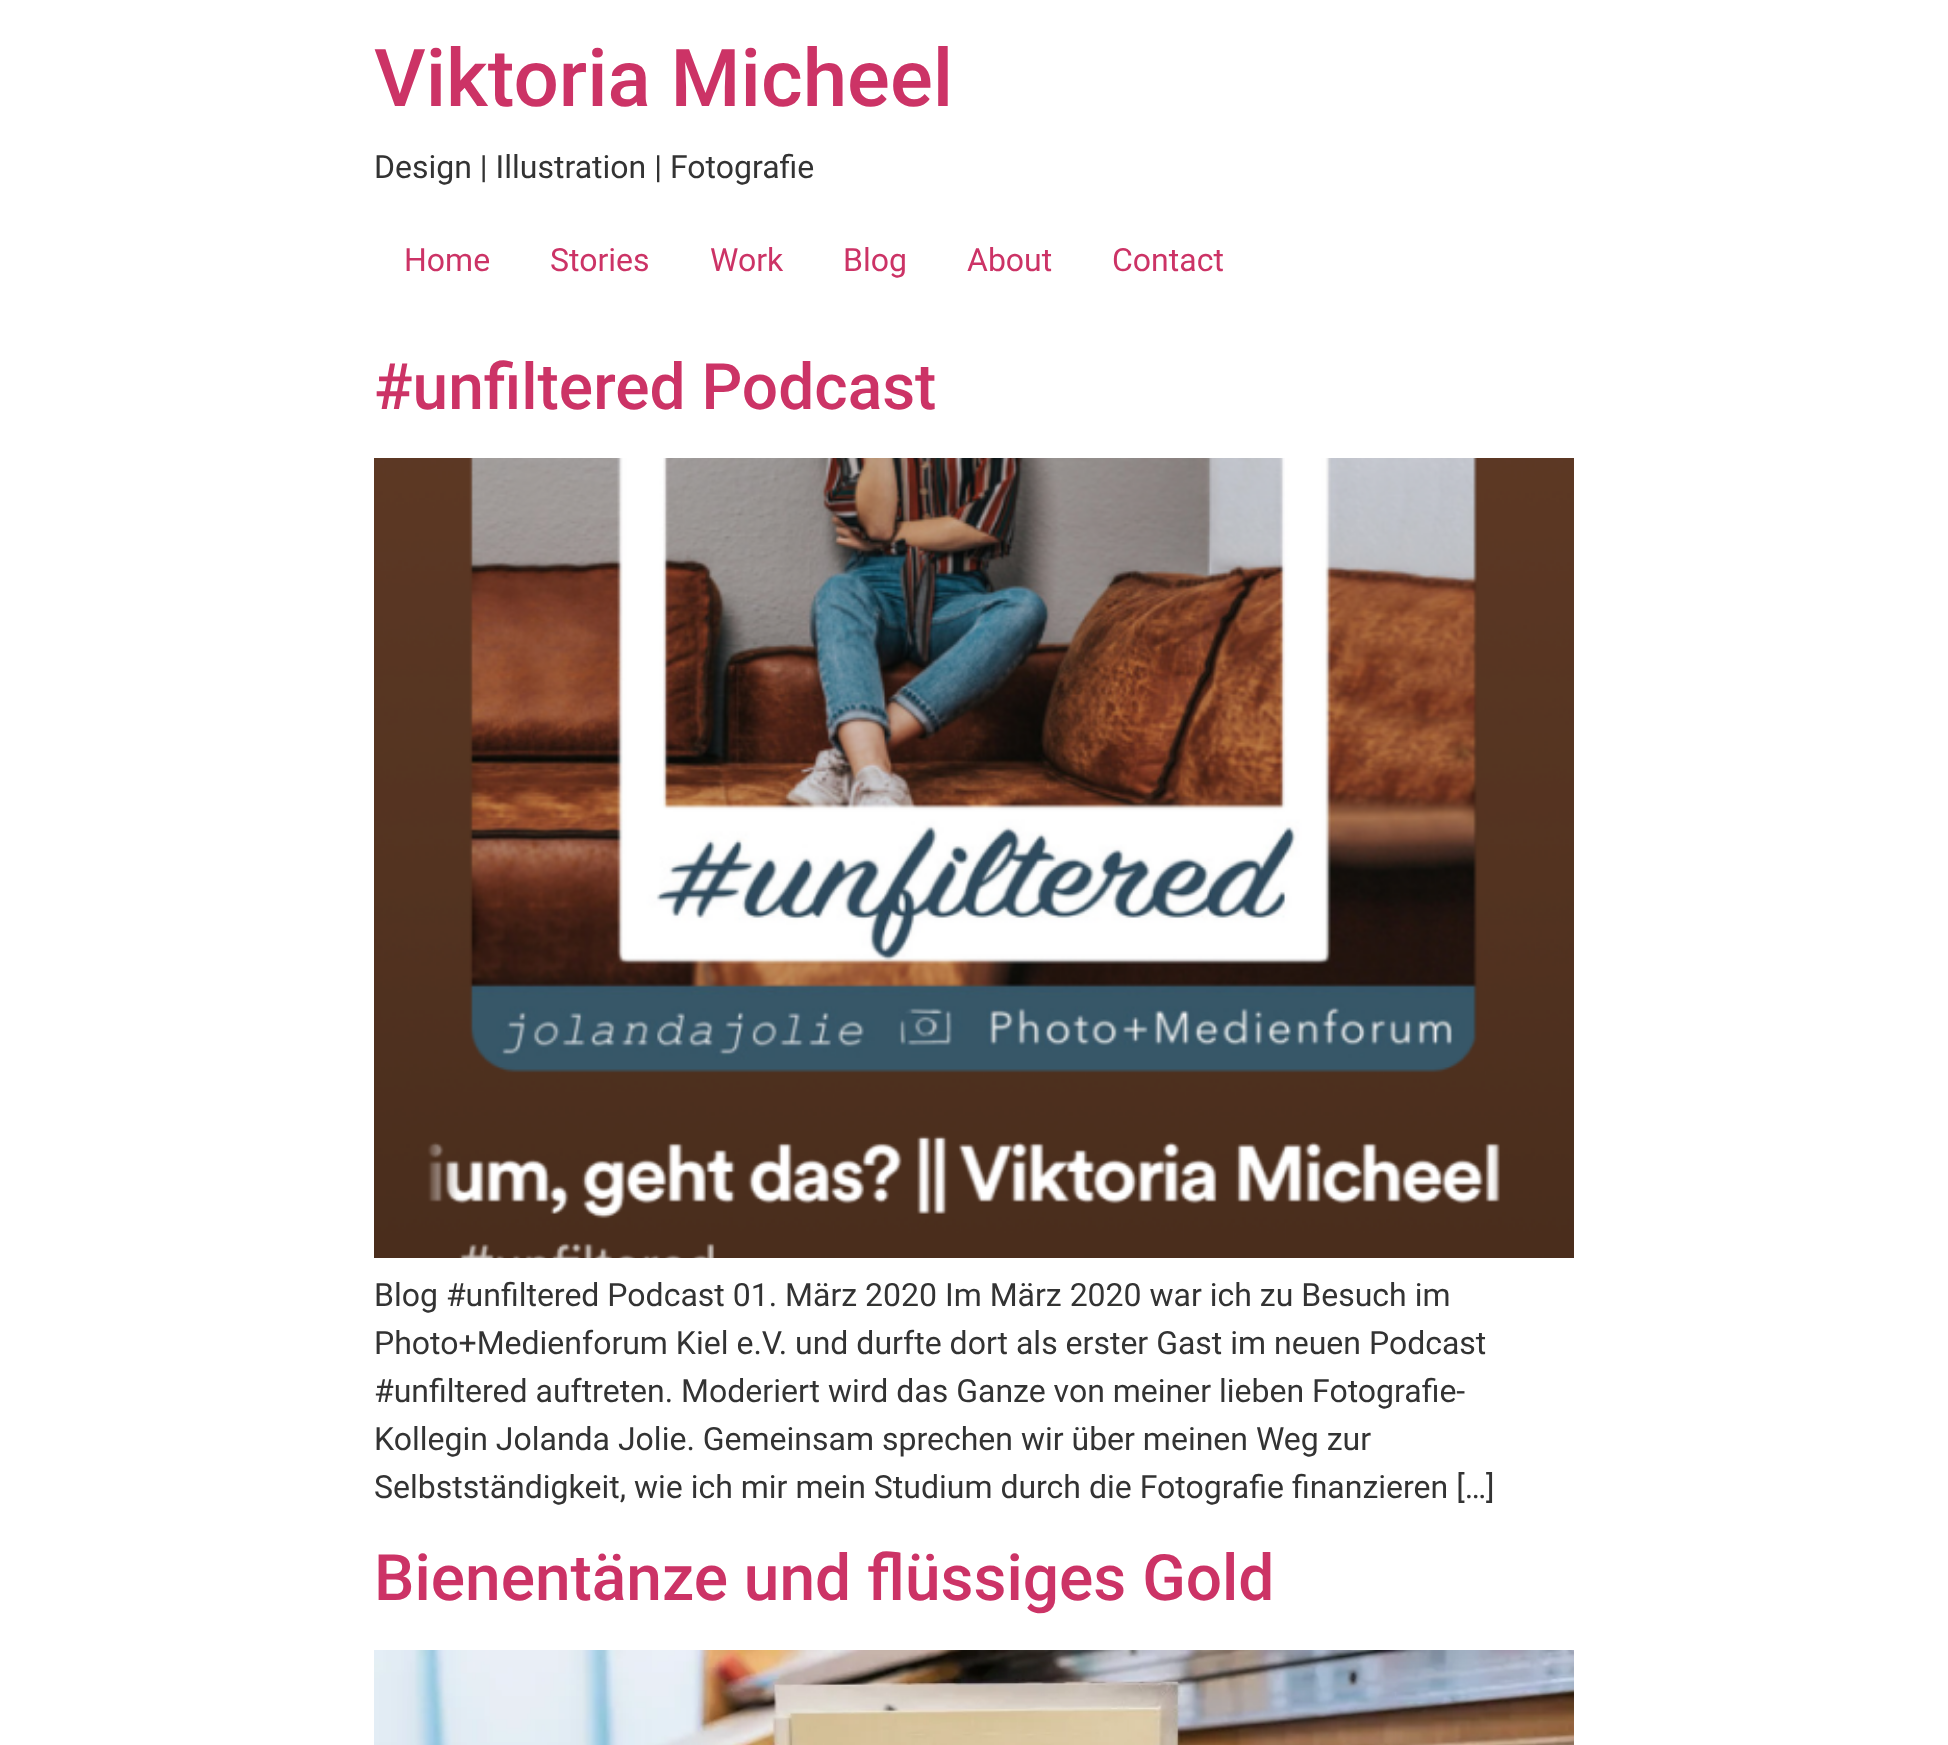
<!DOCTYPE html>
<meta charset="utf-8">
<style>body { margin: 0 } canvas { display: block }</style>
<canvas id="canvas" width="1948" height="1745"></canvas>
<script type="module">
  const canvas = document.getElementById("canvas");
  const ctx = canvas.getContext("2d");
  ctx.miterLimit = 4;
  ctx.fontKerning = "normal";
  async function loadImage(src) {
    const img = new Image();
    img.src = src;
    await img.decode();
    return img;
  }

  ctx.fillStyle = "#ffffff";
  ctx.fillRect(0, 0, 1948, 1745);
  ctx.font = "500 80px Roboto";
  ctx.fillStyle = "#cc3366";
  ctx.fillText("Viktoria Micheel", 374, 106);
  ctx.font = "32px Roboto";
  ctx.fillStyle = "#333333";
  ctx.fillText("Design | Illustration | Fotografie", 374, 178);
  ctx.fillStyle = "#cc3366";
  ctx.fillText("Home", 404, 271);
  ctx.fillText("Stories", 550, 271);
  ctx.fillText("Work", 710, 271);
  ctx.fillText("Blog", 843, 271);
  ctx.fillText("About", 967, 271);
  ctx.fillText("Contact", 1112, 271);
  ctx.font = "500 64px Roboto";
  ctx.fillText("#unfiltered Podcast", 374, 409);
  ctx.drawImage(await loadImage("img1.png"), 374, 458, 1200, 800);
  ctx.font = "32px Roboto";
  ctx.fillStyle = "#333333";
  ctx.fillText("Blog #unfiltered Podcast 01. März 2020 Im März 2020 war ich zu Besuch im", 374, 1306);
  ctx.fillText("Photo+Medienforum Kiel e.V. und durfte dort als erster Gast im neuen Podcast", 374, 1354);
  ctx.fillText("#unfiltered auftreten. Moderiert wird das Ganze von meiner lieben Fotografie-", 374, 1402);
  ctx.fillText("Kollegin Jolanda Jolie. Gemeinsam sprechen wir über meinen Weg zur", 374, 1450);
  ctx.fillText("Selbstständigkeit, wie ich mir mein Studium durch die Fotografie finanzieren […]", 374, 1498);
  ctx.font = "500 64px Roboto";
  ctx.fillStyle = "#cc3366";
  ctx.fillText("Bienentänze und flüssiges Gold", 374, 1600);
  ctx.drawImage(await loadImage("img2.png"), 374, 1650, 1200, 95);
</script>
